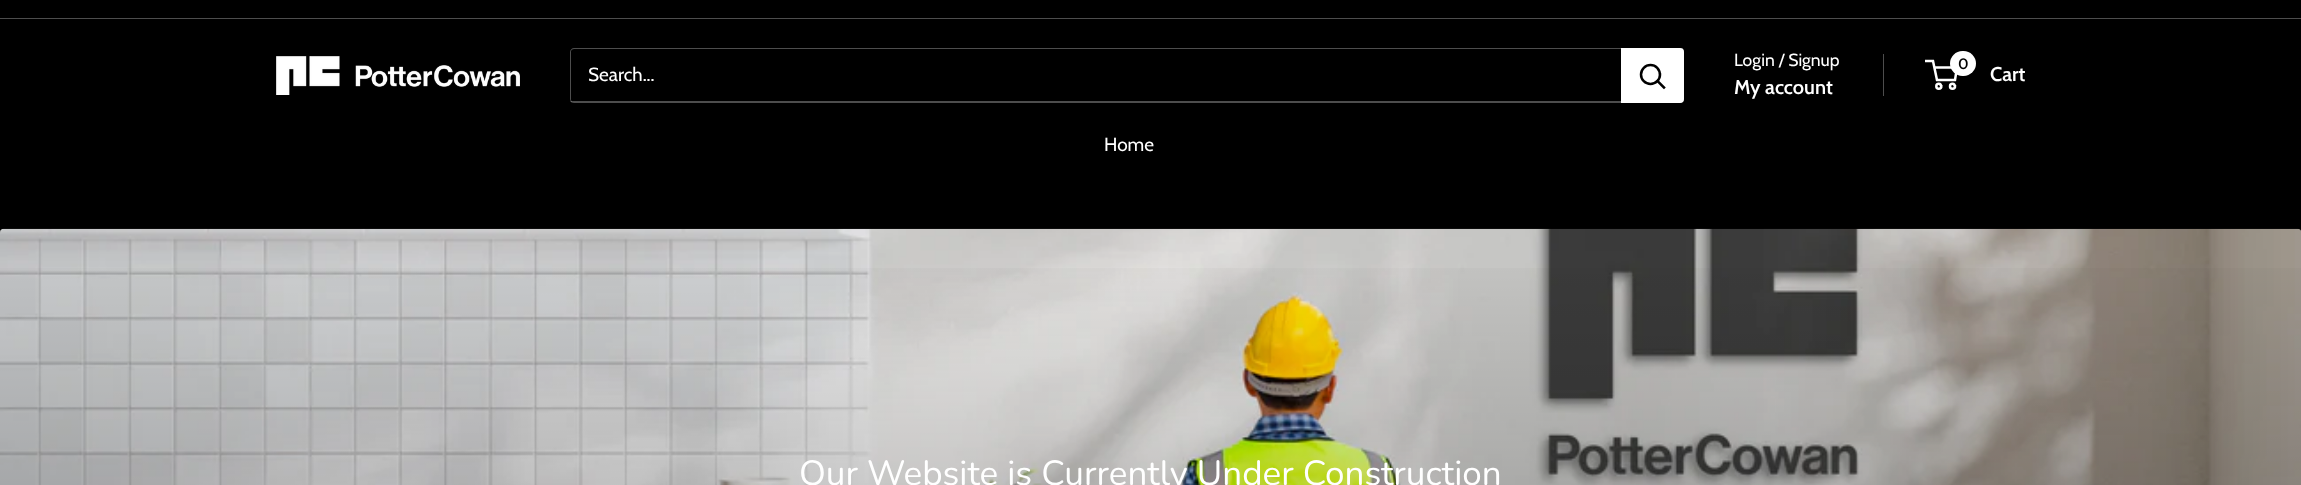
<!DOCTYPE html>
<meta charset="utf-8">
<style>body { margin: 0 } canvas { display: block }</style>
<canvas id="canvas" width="2301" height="485"></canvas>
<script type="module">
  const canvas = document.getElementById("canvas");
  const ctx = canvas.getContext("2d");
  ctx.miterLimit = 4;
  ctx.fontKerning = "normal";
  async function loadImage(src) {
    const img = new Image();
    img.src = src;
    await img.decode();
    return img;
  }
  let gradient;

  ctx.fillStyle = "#000000";
  ctx.fillRect(0, 0, 2301, 485);
  ctx.fillStyle = "#4d4d4d";
  ctx.fillRect(0, 18, 2301, 1);
  ctx.drawImage(await loadImage("img1.png"), 276, 56, 244, 39);
  ctx.beginPath();
  ctx.moveTo(570, 101);
  ctx.bezierCurveTo(571, 102, 572, 103, 574, 103);
  ctx.lineTo(1680, 103);
  ctx.bezierCurveTo(1682, 103, 1684, 101, 1684, 99);
  ctx.lineTo(1684, 52);
  ctx.bezierCurveTo(1684, 50, 1683, 49, 1682, 48);
  ctx.lineTo(1682, 90);
  ctx.bezierCurveTo(1682, 92, 1684, 101, 1679, 101);
  ctx.closePath();
  ctx.fill();
  ctx.fillStyle = "rgba(255, 255, 255, 0.3)";
  ctx.beginPath();
  ctx.moveTo(575, 49);
  ctx.lineTo(1681, 49);
  ctx.lineTo(1683, 49);
  ctx.bezierCurveTo(1682, 49, 1681, 48, 1680, 48);
  ctx.lineTo(574, 48);
  ctx.bezierCurveTo(572, 48, 570, 50, 570, 52);
  ctx.lineTo(570, 99);
  ctx.bezierCurveTo(570, 100, 571, 102, 572, 102);
  ctx.lineTo(571, 100);
  ctx.lineTo(571, 51);
  ctx.bezierCurveTo(572, 49, 574, 49, 575, 49);
  ctx.closePath();
  ctx.fill();
  ctx.font = "19px Cabin";
  ctx.fillStyle = "#ffffff";
  ctx.fillText("Search...", 588, 81);
  ctx.beginPath();
  ctx.roundRect(1621, 48, 63, 55, [0, 4, 4, 0]);
  ctx.fill();
  ctx.beginPath();
  ctx.moveTo(1664, 87.5);
  ctx.lineTo(1657.5, 81);
  ctx.strokeStyle = "#000000";
  ctx.lineWidth = 2.5;
  ctx.lineCap = "square";
  ctx.stroke();
  ctx.beginPath();
  ctx.arc(1650.5, 74.5, 9.5, 0, Math.PI * 2);
  ctx.stroke();
  ctx.font = "17.5px Cabin";
  ctx.fillText("Login / Signup", 1734, 66);
  ctx.fillStyle = "#4d4d4d";
  ctx.fillRect(1883, 54, 1, 42);
  ctx.font = "600 20px Cabin";
  ctx.fillStyle = "#ffffff";
  ctx.fillText("My account", 1734, 94);
  ctx.beginPath();
  ctx.arc(1938.8, 86.2, 2.5, 0, Math.PI * 2);
  ctx.strokeStyle = "#ffffff";
  ctx.stroke();
  ctx.beginPath();
  ctx.arc(1952.5, 86.2, 2.5, 0, Math.PI * 2);
  ctx.stroke();
  ctx.beginPath();
  ctx.moveTo(1934, 67.5);
  ctx.lineTo(1957, 67.5);
  ctx.lineTo(1955, 80);
  ctx.lineTo(1937, 80);
  ctx.lineTo(1933, 61);
  ctx.lineTo(1925, 61);
  ctx.lineCap = "butt";
  ctx.stroke();
  ctx.beginPath();
  ctx.roundRect(1950, 51, 26, 25, 12.5);
  ctx.fill();
  ctx.font = "600 15px Cabin";
  ctx.fillStyle = "#000000";
  ctx.fillText("0", 1958, 69);
  ctx.font = "600 20px Cabin";
  ctx.fillStyle = "#ffffff";
  ctx.fillText("Cart", 1990, 81);
  ctx.font = "19px Cabin";
  ctx.fillText("Home", 1104, 151);
  ctx.drawImage(await loadImage("img2.png"), 0, 228, 2301, 257);
  gradient = ctx.createLinearGradient(1151, 229, 1151, 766);
  gradient.addColorStop(0, "rgba(0, 0, 0, 0)");
  gradient.addColorStop(1, "rgba(0, 0, 0, 0.3)");
  ctx.fillStyle = gradient;
  ctx.fillRect(0, 268, 2301, 217);
  ctx.font = "35px Nunito";
  ctx.fillStyle = "#ffffff";
  ctx.fillText("Our Website is Currently Under Construction", 799, 485);
</script>
